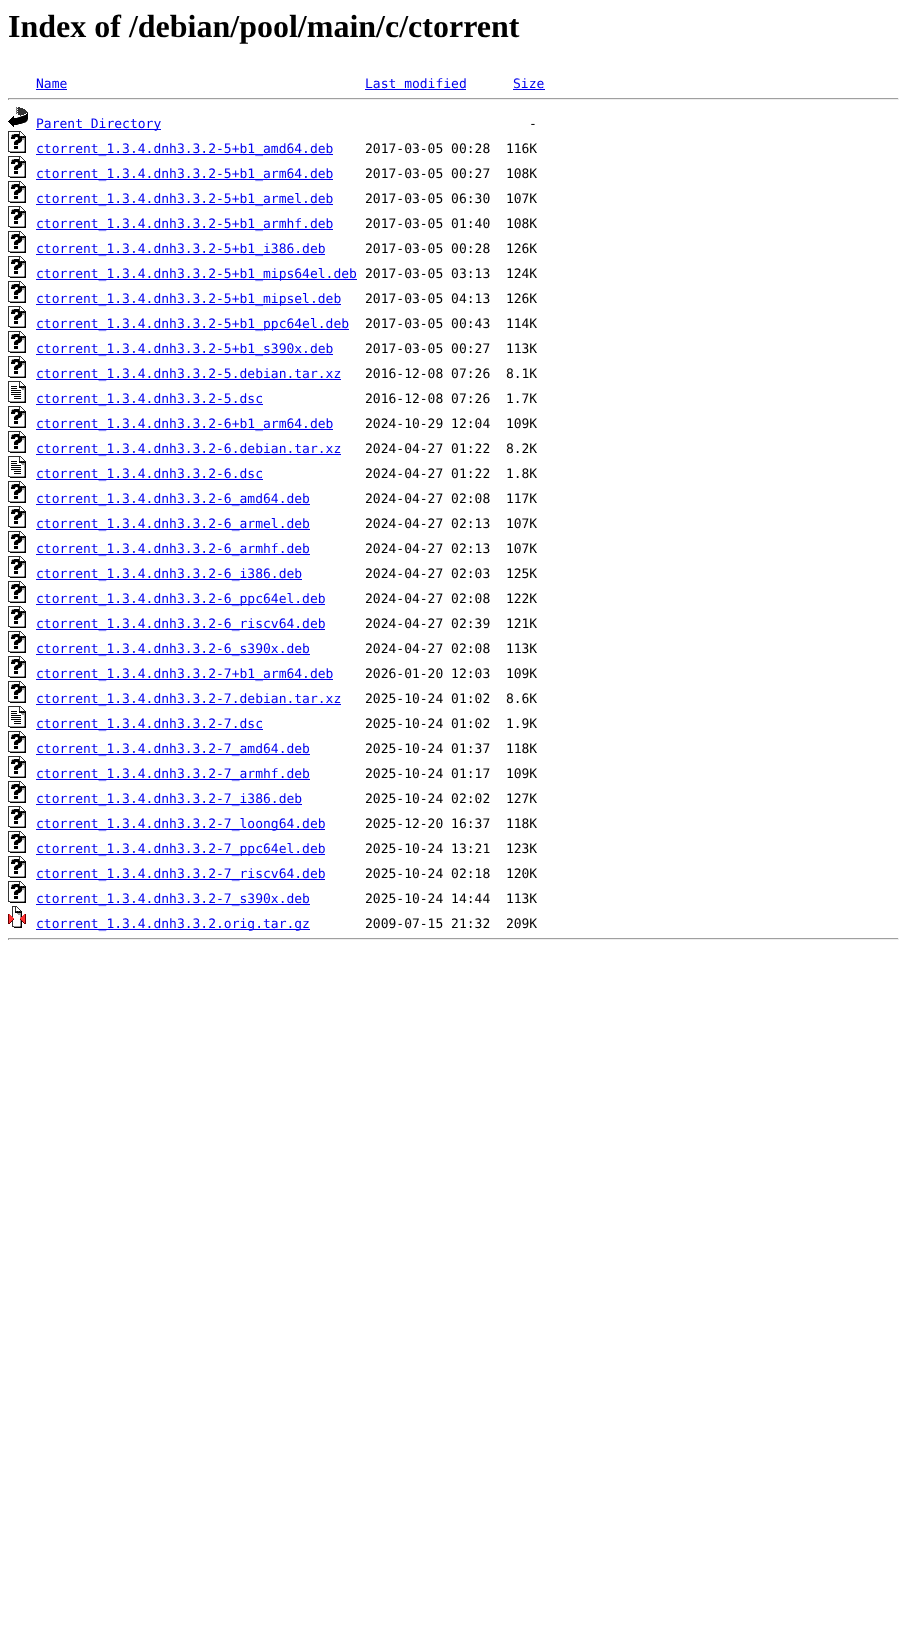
<!DOCTYPE html>
<meta charset="utf-8">
<style>body { margin: 0 } canvas { display: block }</style>
<canvas id="canvas" width="907" height="1629"></canvas>
<script type="module">
  const canvas = document.getElementById("canvas");
  const ctx = canvas.getContext("2d");
  ctx.miterLimit = 4;
  ctx.fontKerning = "normal";
  async function loadImage(src) {
    const img = new Image();
    img.src = src;
    await img.decode();
    return img;
  }

  ctx.fillStyle = "#ffffff";
  ctx.fillRect(0, 0, 907, 1629);
  ctx.font = "bold 32px Liberation Serif";
  ctx.fillStyle = "#000000";
  ctx.fillText("Index of /debian/pool/main/c/ctorrent", 8, 37);
  ctx.font = "13px DejaVu Sans Mono";
  ctx.fillStyle = "#0000ee";
  ctx.fillText("Name", 36, 88);
  ctx.fillRect(36, 89, 31, 1);
  ctx.fillText("Last modified", 365, 88);
  ctx.fillRect(365, 89, 101, 1);
  ctx.fillText("Size", 513, 88);
  ctx.fillRect(513, 89, 32, 1);
  ctx.fillStyle = "#9f9f9f";
  ctx.fillRect(8, 98, 891, 1);
  ctx.fillStyle = "#eeeeee";
  ctx.fillRect(898, 98, 1, 2);
  ctx.fillRect(8, 99, 891, 1);
  ctx.fillStyle = "#9f9f9f";
  ctx.fillRect(8, 98, 1, 2);
  ctx.drawImage(await loadImage("img1.png"), 8, 107, 20, 20);
  ctx.fillStyle = "#0000ee";
  ctx.fillRect(36, 129, 125, 1);
  ctx.fillText("Parent Directory", 36, 128);
  ctx.fillStyle = "#000000";
  ctx.fillText("-", 529, 128);
  ctx.drawImage(await loadImage("img2.png"), 8, 131, 18, 22);
  ctx.fillStyle = "#0000ee";
  ctx.fillRect(36, 154, 297, 1);
  ctx.fillText("ctorrent_1.3.4.dnh3.3.2-5+b1_amd64.deb", 36, 153);
  ctx.fillStyle = "#000000";
  ctx.fillText("2017-03-05 00:28  116K", 365, 153);
  ctx.drawImage(await loadImage("img2.png"), 8, 156, 18, 22);
  ctx.fillStyle = "#0000ee";
  ctx.fillRect(36, 179, 297, 1);
  ctx.fillText("ctorrent_1.3.4.dnh3.3.2-5+b1_arm64.deb", 36, 178);
  ctx.fillStyle = "#000000";
  ctx.fillText("2017-03-05 00:27  108K", 365, 178);
  ctx.drawImage(await loadImage("img2.png"), 8, 181, 18, 22);
  ctx.fillStyle = "#0000ee";
  ctx.fillRect(36, 204, 297, 1);
  ctx.fillText("ctorrent_1.3.4.dnh3.3.2-5+b1_armel.deb", 36, 203);
  ctx.fillStyle = "#000000";
  ctx.fillText("2017-03-05 06:30  107K", 365, 203);
  ctx.drawImage(await loadImage("img2.png"), 8, 206, 18, 22);
  ctx.fillStyle = "#0000ee";
  ctx.fillRect(36, 229, 297, 1);
  ctx.fillText("ctorrent_1.3.4.dnh3.3.2-5+b1_armhf.deb", 36, 228);
  ctx.fillStyle = "#000000";
  ctx.fillText("2017-03-05 01:40  108K", 365, 228);
  ctx.drawImage(await loadImage("img2.png"), 8, 231, 18, 22);
  ctx.fillStyle = "#0000ee";
  ctx.fillRect(36, 254, 289, 1);
  ctx.fillText("ctorrent_1.3.4.dnh3.3.2-5+b1_i386.deb", 36, 253);
  ctx.fillStyle = "#000000";
  ctx.fillText("2017-03-05 00:28  126K", 365, 253);
  ctx.drawImage(await loadImage("img2.png"), 8, 256, 18, 22);
  ctx.fillStyle = "#0000ee";
  ctx.fillRect(36, 279, 321, 1);
  ctx.fillText("ctorrent_1.3.4.dnh3.3.2-5+b1_mips64el.deb", 36, 278);
  ctx.fillStyle = "#000000";
  ctx.fillText("2017-03-05 03:13  124K", 365, 278);
  ctx.drawImage(await loadImage("img2.png"), 8, 281, 18, 22);
  ctx.fillStyle = "#0000ee";
  ctx.fillRect(36, 304, 305, 1);
  ctx.fillText("ctorrent_1.3.4.dnh3.3.2-5+b1_mipsel.deb", 36, 303);
  ctx.fillStyle = "#000000";
  ctx.fillText("2017-03-05 04:13  126K", 365, 303);
  ctx.drawImage(await loadImage("img2.png"), 8, 306, 18, 22);
  ctx.fillStyle = "#0000ee";
  ctx.fillRect(36, 329, 313, 1);
  ctx.fillText("ctorrent_1.3.4.dnh3.3.2-5+b1_ppc64el.deb", 36, 328);
  ctx.fillStyle = "#000000";
  ctx.fillText("2017-03-05 00:43  114K", 365, 328);
  ctx.drawImage(await loadImage("img2.png"), 8, 331, 18, 22);
  ctx.fillStyle = "#0000ee";
  ctx.fillRect(36, 354, 297, 1);
  ctx.fillText("ctorrent_1.3.4.dnh3.3.2-5+b1_s390x.deb", 36, 353);
  ctx.fillStyle = "#000000";
  ctx.fillText("2017-03-05 00:27  113K", 365, 353);
  ctx.drawImage(await loadImage("img2.png"), 8, 356, 18, 22);
  ctx.fillStyle = "#0000ee";
  ctx.fillRect(36, 379, 305, 1);
  ctx.fillText("ctorrent_1.3.4.dnh3.3.2-5.debian.tar.xz", 36, 378);
  ctx.fillStyle = "#000000";
  ctx.fillText("2016-12-08 07:26  8.1K", 365, 378);
  ctx.drawImage(await loadImage("img3.png"), 8, 381, 18, 22);
  ctx.fillStyle = "#0000ee";
  ctx.fillRect(36, 404, 227, 1);
  ctx.fillText("ctorrent_1.3.4.dnh3.3.2-5.dsc", 36, 403);
  ctx.fillStyle = "#000000";
  ctx.fillText("2016-12-08 07:26  1.7K", 365, 403);
  ctx.drawImage(await loadImage("img2.png"), 8, 406, 18, 22);
  ctx.fillStyle = "#0000ee";
  ctx.fillRect(36, 429, 297, 1);
  ctx.fillText("ctorrent_1.3.4.dnh3.3.2-6+b1_arm64.deb", 36, 428);
  ctx.fillStyle = "#000000";
  ctx.fillText("2024-10-29 12:04  109K", 365, 428);
  ctx.drawImage(await loadImage("img2.png"), 8, 431, 18, 22);
  ctx.fillStyle = "#0000ee";
  ctx.fillRect(36, 454, 305, 1);
  ctx.fillText("ctorrent_1.3.4.dnh3.3.2-6.debian.tar.xz", 36, 453);
  ctx.fillStyle = "#000000";
  ctx.fillText("2024-04-27 01:22  8.2K", 365, 453);
  ctx.drawImage(await loadImage("img3.png"), 8, 456, 18, 22);
  ctx.fillStyle = "#0000ee";
  ctx.fillRect(36, 479, 227, 1);
  ctx.fillText("ctorrent_1.3.4.dnh3.3.2-6.dsc", 36, 478);
  ctx.fillStyle = "#000000";
  ctx.fillText("2024-04-27 01:22  1.8K", 365, 478);
  ctx.drawImage(await loadImage("img2.png"), 8, 481, 18, 22);
  ctx.fillStyle = "#0000ee";
  ctx.fillRect(36, 504, 274, 1);
  ctx.fillText("ctorrent_1.3.4.dnh3.3.2-6_amd64.deb", 36, 503);
  ctx.fillStyle = "#000000";
  ctx.fillText("2024-04-27 02:08  117K", 365, 503);
  ctx.drawImage(await loadImage("img2.png"), 8, 506, 18, 22);
  ctx.fillStyle = "#0000ee";
  ctx.fillRect(36, 529, 274, 1);
  ctx.fillText("ctorrent_1.3.4.dnh3.3.2-6_armel.deb", 36, 528);
  ctx.fillStyle = "#000000";
  ctx.fillText("2024-04-27 02:13  107K", 365, 528);
  ctx.drawImage(await loadImage("img2.png"), 8, 531, 18, 22);
  ctx.fillStyle = "#0000ee";
  ctx.fillRect(36, 554, 274, 1);
  ctx.fillText("ctorrent_1.3.4.dnh3.3.2-6_armhf.deb", 36, 553);
  ctx.fillStyle = "#000000";
  ctx.fillText("2024-04-27 02:13  107K", 365, 553);
  ctx.drawImage(await loadImage("img2.png"), 8, 556, 18, 22);
  ctx.fillStyle = "#0000ee";
  ctx.fillRect(36, 579, 266, 1);
  ctx.fillText("ctorrent_1.3.4.dnh3.3.2-6_i386.deb", 36, 578);
  ctx.fillStyle = "#000000";
  ctx.fillText("2024-04-27 02:03  125K", 365, 578);
  ctx.drawImage(await loadImage("img2.png"), 8, 581, 18, 22);
  ctx.fillStyle = "#0000ee";
  ctx.fillRect(36, 604, 289, 1);
  ctx.fillText("ctorrent_1.3.4.dnh3.3.2-6_ppc64el.deb", 36, 603);
  ctx.fillStyle = "#000000";
  ctx.fillText("2024-04-27 02:08  122K", 365, 603);
  ctx.drawImage(await loadImage("img2.png"), 8, 606, 18, 22);
  ctx.fillStyle = "#0000ee";
  ctx.fillRect(36, 629, 289, 1);
  ctx.fillText("ctorrent_1.3.4.dnh3.3.2-6_riscv64.deb", 36, 628);
  ctx.fillStyle = "#000000";
  ctx.fillText("2024-04-27 02:39  121K", 365, 628);
  ctx.drawImage(await loadImage("img2.png"), 8, 631, 18, 22);
  ctx.fillStyle = "#0000ee";
  ctx.fillRect(36, 654, 274, 1);
  ctx.fillText("ctorrent_1.3.4.dnh3.3.2-6_s390x.deb", 36, 653);
  ctx.fillStyle = "#000000";
  ctx.fillText("2024-04-27 02:08  113K", 365, 653);
  ctx.drawImage(await loadImage("img2.png"), 8, 656, 18, 22);
  ctx.fillStyle = "#0000ee";
  ctx.fillRect(36, 679, 297, 1);
  ctx.fillText("ctorrent_1.3.4.dnh3.3.2-7+b1_arm64.deb", 36, 678);
  ctx.fillStyle = "#000000";
  ctx.fillText("2026-01-20 12:03  109K", 365, 678);
  ctx.drawImage(await loadImage("img2.png"), 8, 681, 18, 22);
  ctx.fillStyle = "#0000ee";
  ctx.fillRect(36, 704, 305, 1);
  ctx.fillText("ctorrent_1.3.4.dnh3.3.2-7.debian.tar.xz", 36, 703);
  ctx.fillStyle = "#000000";
  ctx.fillText("2025-10-24 01:02  8.6K", 365, 703);
  ctx.drawImage(await loadImage("img3.png"), 8, 706, 18, 22);
  ctx.fillStyle = "#0000ee";
  ctx.fillRect(36, 729, 227, 1);
  ctx.fillText("ctorrent_1.3.4.dnh3.3.2-7.dsc", 36, 728);
  ctx.fillStyle = "#000000";
  ctx.fillText("2025-10-24 01:02  1.9K", 365, 728);
  ctx.drawImage(await loadImage("img2.png"), 8, 731, 18, 22);
  ctx.fillStyle = "#0000ee";
  ctx.fillRect(36, 754, 274, 1);
  ctx.fillText("ctorrent_1.3.4.dnh3.3.2-7_amd64.deb", 36, 753);
  ctx.fillStyle = "#000000";
  ctx.fillText("2025-10-24 01:37  118K", 365, 753);
  ctx.drawImage(await loadImage("img2.png"), 8, 756, 18, 22);
  ctx.fillStyle = "#0000ee";
  ctx.fillRect(36, 779, 274, 1);
  ctx.fillText("ctorrent_1.3.4.dnh3.3.2-7_armhf.deb", 36, 778);
  ctx.fillStyle = "#000000";
  ctx.fillText("2025-10-24 01:17  109K", 365, 778);
  ctx.drawImage(await loadImage("img2.png"), 8, 781, 18, 22);
  ctx.fillStyle = "#0000ee";
  ctx.fillRect(36, 804, 266, 1);
  ctx.fillText("ctorrent_1.3.4.dnh3.3.2-7_i386.deb", 36, 803);
  ctx.fillStyle = "#000000";
  ctx.fillText("2025-10-24 02:02  127K", 365, 803);
  ctx.drawImage(await loadImage("img2.png"), 8, 806, 18, 22);
  ctx.fillStyle = "#0000ee";
  ctx.fillRect(36, 829, 289, 1);
  ctx.fillText("ctorrent_1.3.4.dnh3.3.2-7_loong64.deb", 36, 828);
  ctx.fillStyle = "#000000";
  ctx.fillText("2025-12-20 16:37  118K", 365, 828);
  ctx.drawImage(await loadImage("img2.png"), 8, 831, 18, 22);
  ctx.fillStyle = "#0000ee";
  ctx.fillRect(36, 854, 289, 1);
  ctx.fillText("ctorrent_1.3.4.dnh3.3.2-7_ppc64el.deb", 36, 853);
  ctx.fillStyle = "#000000";
  ctx.fillText("2025-10-24 13:21  123K", 365, 853);
  ctx.drawImage(await loadImage("img2.png"), 8, 856, 18, 22);
  ctx.fillStyle = "#0000ee";
  ctx.fillRect(36, 879, 289, 1);
  ctx.fillText("ctorrent_1.3.4.dnh3.3.2-7_riscv64.deb", 36, 878);
  ctx.fillStyle = "#000000";
  ctx.fillText("2025-10-24 02:18  120K", 365, 878);
  ctx.drawImage(await loadImage("img2.png"), 8, 881, 18, 22);
  ctx.fillStyle = "#0000ee";
  ctx.fillRect(36, 904, 274, 1);
  ctx.fillText("ctorrent_1.3.4.dnh3.3.2-7_s390x.deb", 36, 903);
  ctx.fillStyle = "#000000";
  ctx.fillText("2025-10-24 14:44  113K", 365, 903);
  ctx.drawImage(await loadImage("img4.png"), 8, 906, 18, 22);
  ctx.fillStyle = "#0000ee";
  ctx.fillRect(36, 929, 274, 1);
  ctx.fillText("ctorrent_1.3.4.dnh3.3.2.orig.tar.gz", 36, 928);
  ctx.fillStyle = "#000000";
  ctx.fillText("2009-07-15 21:32  209K", 365, 928);
  ctx.fillStyle = "#9f9f9f";
  ctx.fillRect(8, 938, 891, 1);
  ctx.fillStyle = "#eeeeee";
  ctx.fillRect(898, 938, 1, 2);
  ctx.fillRect(8, 939, 891, 1);
  ctx.fillStyle = "#9f9f9f";
  ctx.fillRect(8, 938, 1, 2);
</script>
